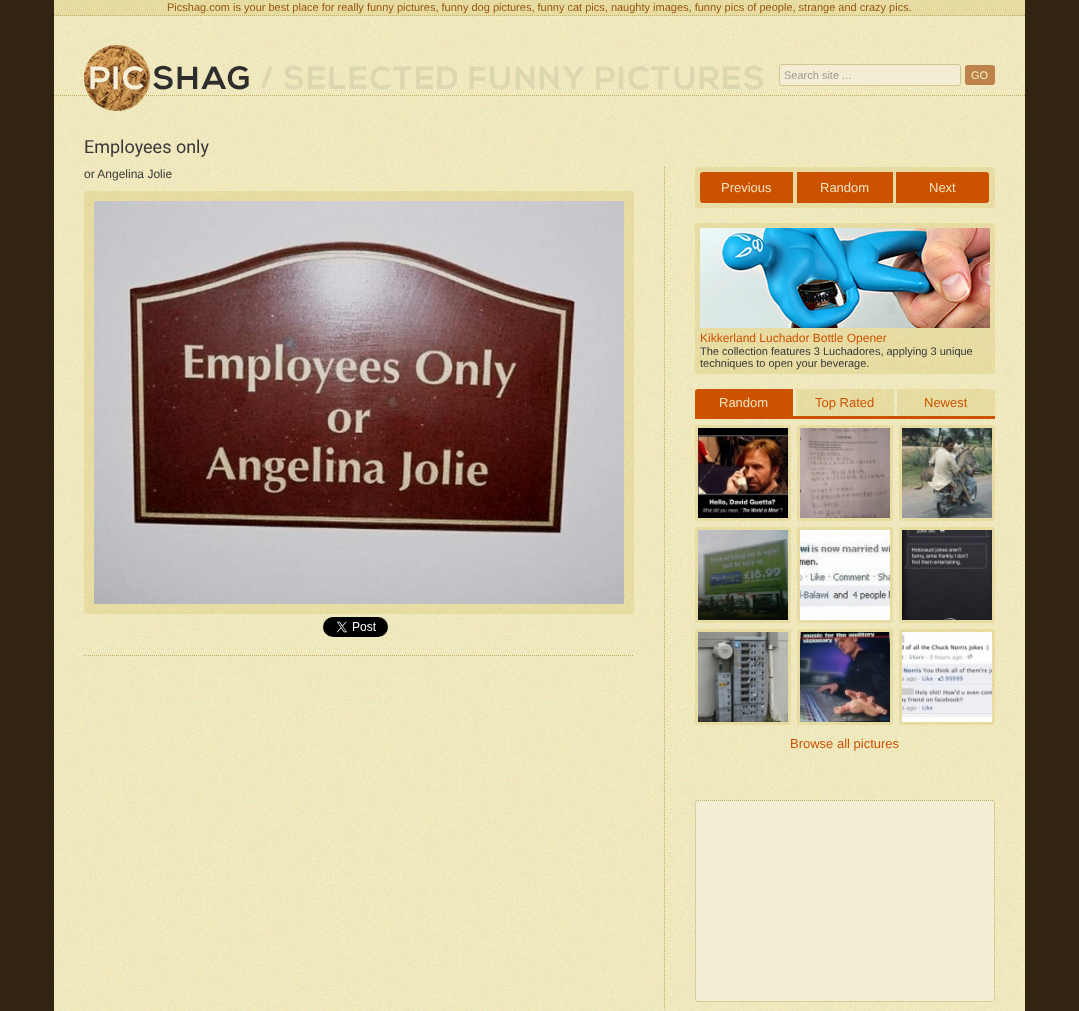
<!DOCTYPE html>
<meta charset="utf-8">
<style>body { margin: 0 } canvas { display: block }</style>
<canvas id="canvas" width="1079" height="1011"></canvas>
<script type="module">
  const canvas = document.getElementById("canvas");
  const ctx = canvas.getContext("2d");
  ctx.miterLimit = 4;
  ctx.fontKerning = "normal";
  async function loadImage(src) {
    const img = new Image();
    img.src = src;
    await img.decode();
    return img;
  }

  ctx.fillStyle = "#312412";
  ctx.fillRect(0, 0, 1079, 1011);
  ctx.drawImage(await loadImage("img1.png"), 54, 16, 971, 995);
  ctx.beginPath();
  ctx.moveTo(54, 95.5);
  ctx.lineTo(1025, 95.5);
  ctx.strokeStyle = "#bdad65";
  ctx.setLineDash([1, 1]);
  ctx.stroke();
  ctx.drawImage(await loadImage("img2.png"), 54, 0, 971, 16);
  ctx.beginPath();
  ctx.moveTo(54, 15.5);
  ctx.lineTo(1025, 15.5);
  ctx.stroke();
  ctx.font = "11px Liberation Sans";
  ctx.fillStyle = "#975512";
  ctx.fillText("Picshag.com is your best place for really funny pictures, funny dog pictures, funny cat pics, naughty images, funny pics of people, strange and crazy pics.", 167, 11);
  ctx.drawImage(await loadImage("img3.png"), 84, 45, 165, 66);
  ctx.drawImage(await loadImage("img4.png"), 260, 65, 503, 25);
  ctx.fillStyle = "#f2edd3";
  ctx.beginPath();
  ctx.roundRect(779.5, 64.5, 181, 21, 2.5);
  ctx.fill();
  ctx.strokeStyle = "#d2c68e";
  ctx.setLineDash([]);
  ctx.stroke();
  ctx.fillStyle = "#9c9b93";
  ctx.fillText("Search site ...", 784, 79);
  ctx.fillStyle = "#be824d";
  ctx.beginPath();
  ctx.roundRect(965, 65, 30, 20, 3);
  ctx.fill();
  ctx.fillStyle = "#f0edb8";
  ctx.fillText("GO", 971, 79);
  ctx.font = "18px Roboto";
  ctx.fillStyle = "#383838";
  ctx.fillText("Employees only", 84, 153);
  ctx.font = "12px Liberation Sans";
  ctx.fillText("or Angelina Jolie", 84, 178);
  ctx.drawImage(await loadImage("img5.png"), 84, 191, 550, 423);
  ctx.drawImage(await loadImage("img6.png"), 323, 617, 65, 20);
  ctx.beginPath();
  ctx.moveTo(84, 655.5);
  ctx.lineTo(634, 655.5);
  ctx.strokeStyle = "#bdad65";
  ctx.setLineDash([1, 1]);
  ctx.stroke();
  ctx.beginPath();
  ctx.moveTo(664.5, 167);
  ctx.lineTo(664.5, 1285);
  ctx.stroke();
  ctx.drawImage(await loadImage("img7.png"), 695, 167, 300, 41);
  ctx.fillStyle = "#cc5202";
  ctx.beginPath();
  ctx.roundRect(700, 172, 93, 31, [3, 0, 0, 3]);
  ctx.fill();
  ctx.font = "13px Liberation Sans";
  ctx.fillStyle = "#f0e2bb";
  ctx.fillText("Previous", 721, 192);
  ctx.fillStyle = "#cc5202";
  ctx.fillRect(797, 172, 96, 31);
  ctx.fillStyle = "#f0e2bb";
  ctx.fillText("Random", 820, 192);
  ctx.fillStyle = "#cc5202";
  ctx.beginPath();
  ctx.roundRect(896, 172, 93, 31, [0, 3, 3, 0]);
  ctx.fill();
  ctx.fillStyle = "#f0e2bb";
  ctx.fillText("Next", 929, 192);
  ctx.drawImage(await loadImage("img8.png"), 695, 223, 300, 151);
  ctx.drawImage(await loadImage("img9.png"), 700, 228, 290, 100);
  ctx.font = "12px Liberation Sans";
  ctx.fillStyle = "#cc5202";
  ctx.fillText("Kikkerland Luchador Bottle Opener", 700, 342);
  ctx.font = "11px Liberation Sans";
  ctx.fillStyle = "#383838";
  ctx.fillText("The collection features 3 Luchadores, applying 3 unique", 700, 355);
  ctx.fillText("techniques to open your beverage.", 700, 367);
  ctx.fillStyle = "#cc5202";
  ctx.fillRect(695, 416, 300, 3);
  ctx.beginPath();
  ctx.roundRect(695, 389, 98, 27, [3, 0, 0, 0]);
  ctx.fill();
  ctx.font = "13px Liberation Sans";
  ctx.fillStyle = "#f0e2bb";
  ctx.fillText("Random", 719, 407);
  ctx.drawImage(await loadImage("img10.png"), 796, 389, 98, 27);
  ctx.fillStyle = "#cc5202";
  ctx.fillText("Top Rated", 815, 407);
  ctx.drawImage(await loadImage("img11.png"), 897, 389, 98, 27);
  ctx.fillText("Newest", 924, 407);
  ctx.drawImage(await loadImage("img12.png"), 695, 425, 96, 96);
  ctx.drawImage(await loadImage("img13.png"), 797, 425, 96, 96);
  ctx.drawImage(await loadImage("img14.png"), 899, 425, 96, 96);
  ctx.drawImage(await loadImage("img15.png"), 695, 527, 96, 96);
  ctx.drawImage(await loadImage("img16.png"), 797, 527, 96, 96);
  ctx.drawImage(await loadImage("img17.png"), 899, 527, 96, 96);
  ctx.drawImage(await loadImage("img18.png"), 695, 629, 96, 96);
  ctx.drawImage(await loadImage("img19.png"), 797, 629, 96, 96);
  ctx.drawImage(await loadImage("img20.png"), 899, 629, 96, 96);
  ctx.fillText("Browse all pictures", 790, 748);
  ctx.fillStyle = "#f2edd3";
  ctx.beginPath();
  ctx.roundRect(695, 800, 300, 202, 3);
  ctx.fill();
  ctx.beginPath();
  ctx.moveTo(698, 800.5);
  ctx.lineTo(992, 800.5);
  ctx.bezierCurveTo(993.5, 800.5, 994.5, 801.5, 994.5, 803);
  ctx.lineTo(994.5, 999);
  ctx.bezierCurveTo(994.5, 1000.5, 993.5, 1001.5, 992, 1001.5);
  ctx.lineTo(698, 1001.5);
  ctx.bezierCurveTo(696.5, 1001.5, 695.5, 1000.5, 695.5, 999);
  ctx.lineTo(695.5, 803);
  ctx.bezierCurveTo(695.5, 801.5, 696.5, 800.5, 698, 800.5);
  ctx.closePath();
  ctx.stroke();
</script>
